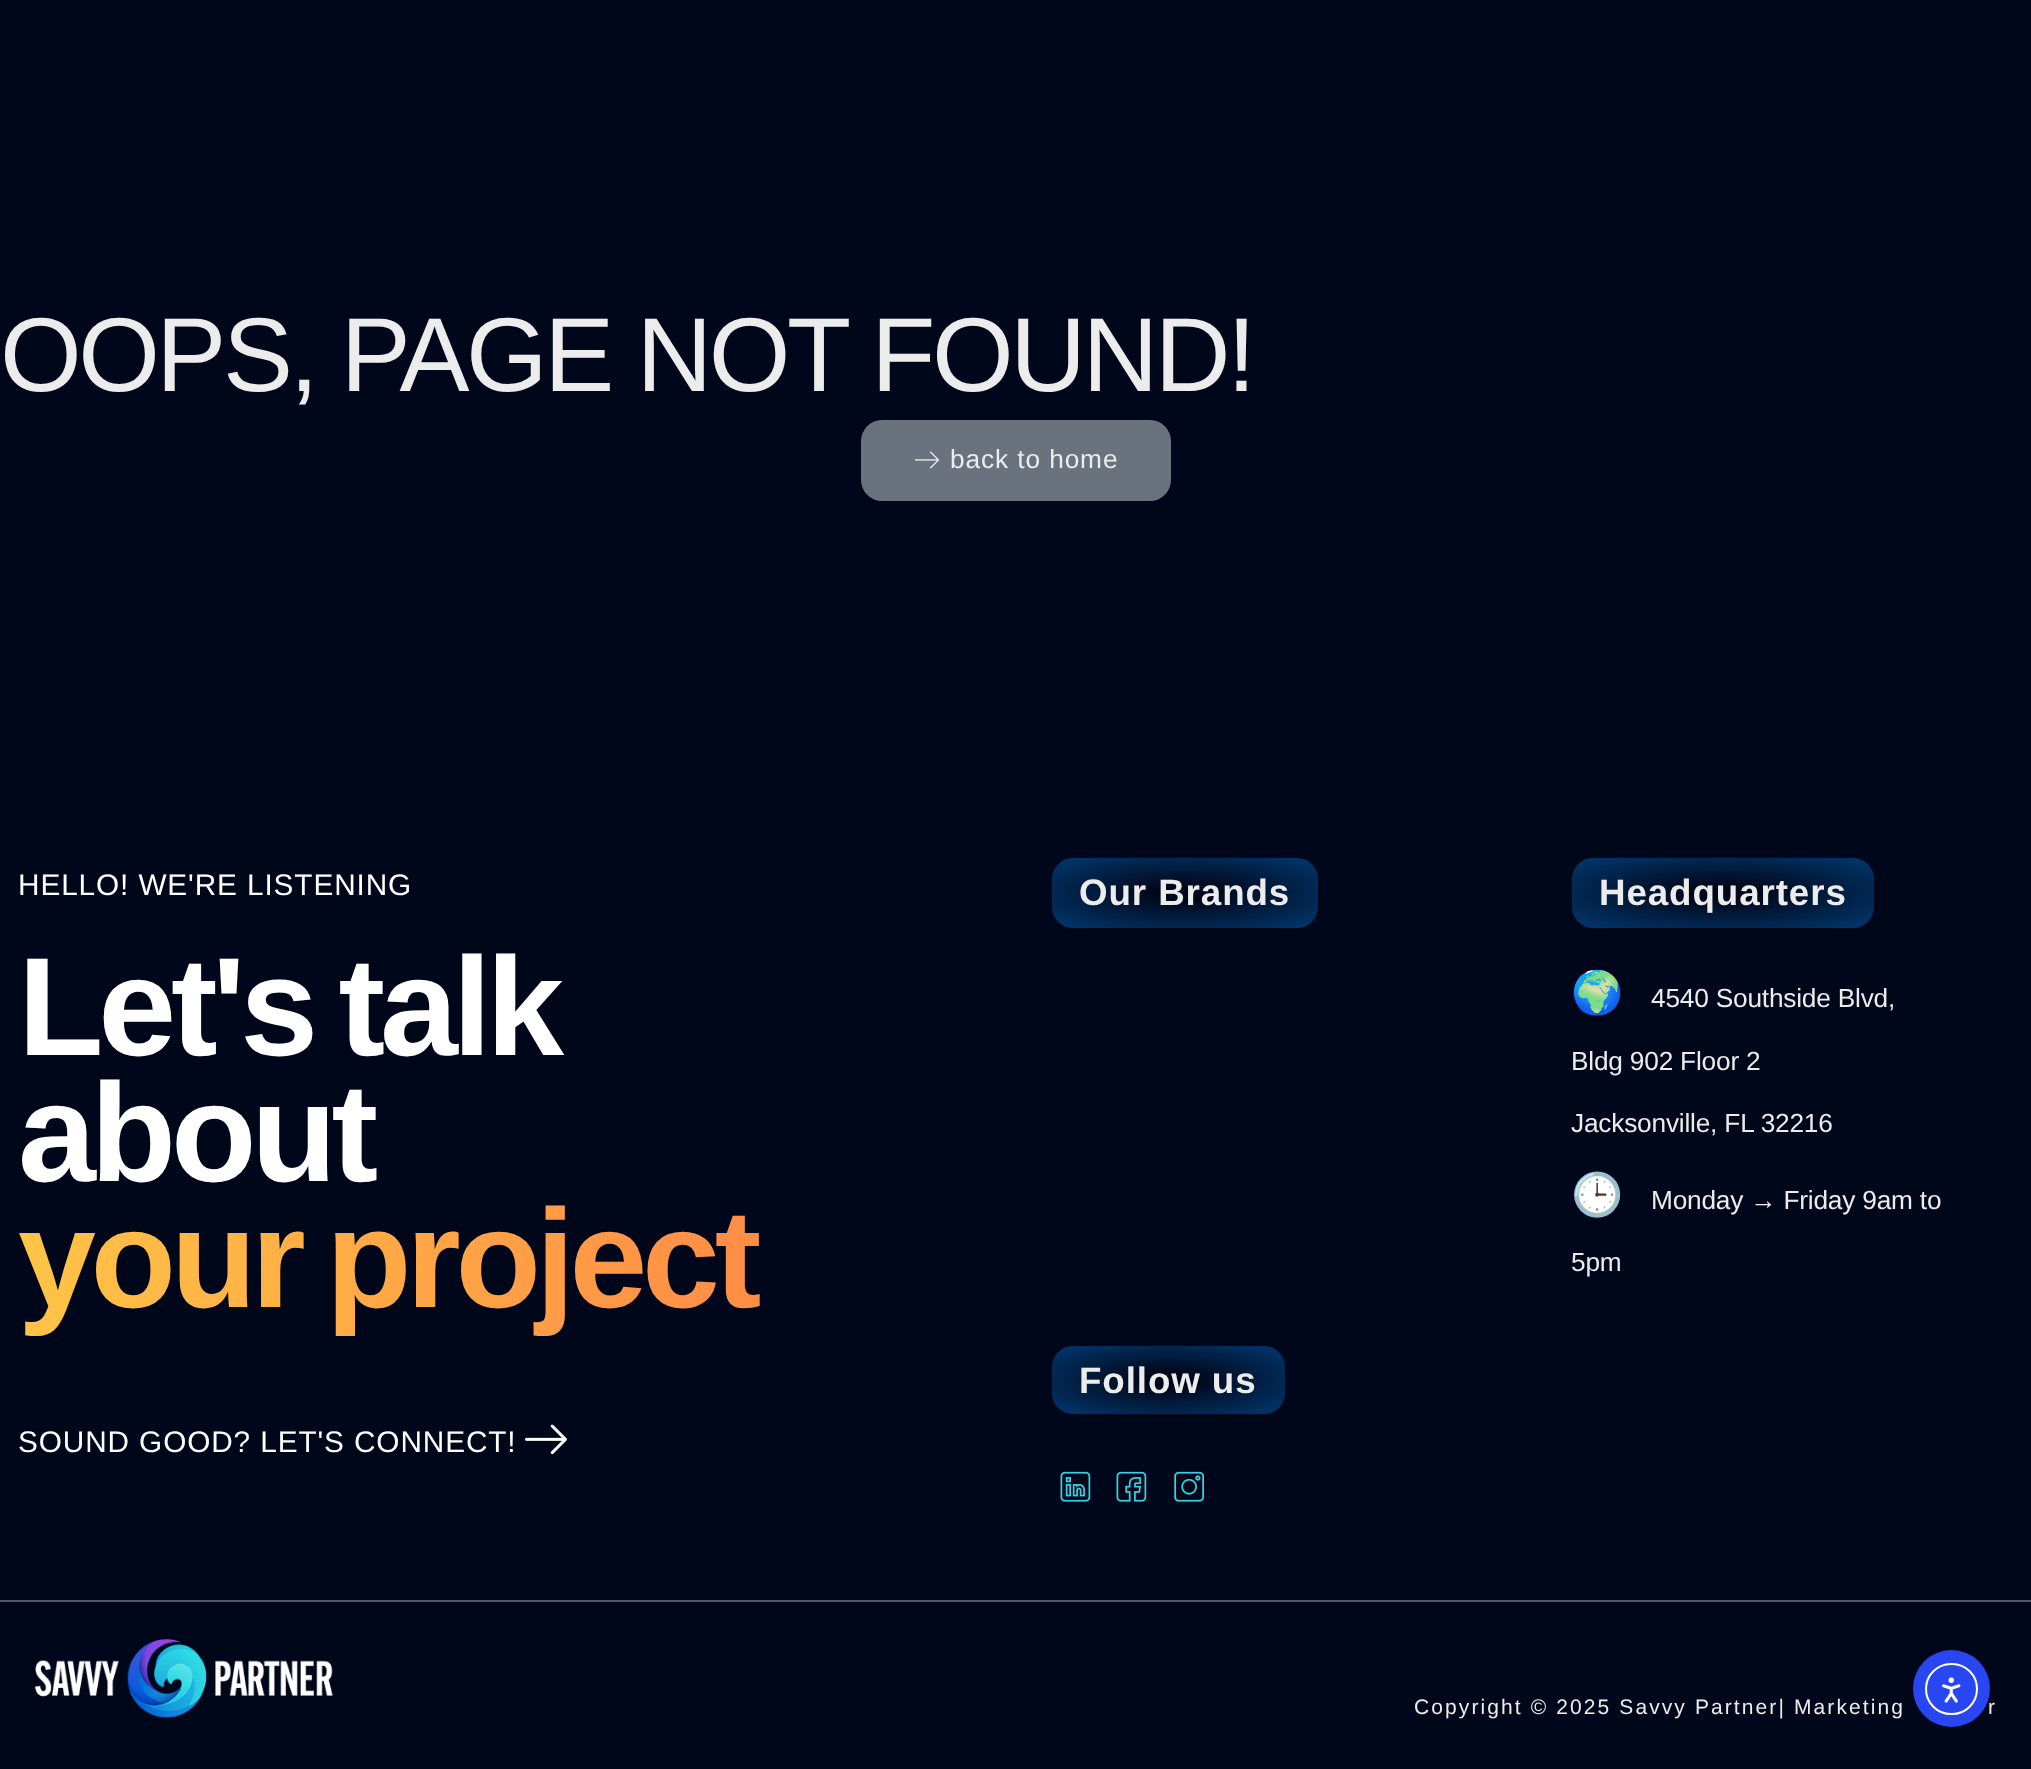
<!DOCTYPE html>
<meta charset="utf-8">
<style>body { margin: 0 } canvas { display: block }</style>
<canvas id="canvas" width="2031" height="1769"></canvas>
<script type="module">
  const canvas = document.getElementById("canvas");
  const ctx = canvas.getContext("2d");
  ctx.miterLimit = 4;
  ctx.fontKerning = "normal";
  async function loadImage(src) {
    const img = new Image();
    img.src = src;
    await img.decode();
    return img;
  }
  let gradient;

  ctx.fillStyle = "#01071a";
  ctx.fillRect(0, 0, 2031, 1769);
  ctx.letterSpacing = "-3.5px";
  ctx.font = "105px Liberation Sans";
  ctx.fillStyle = "#ececec";
  ctx.fillText("OOPS, PAGE NOT FOUND!", 0, 391);
  ctx.fillStyle = "#69727d";
  ctx.beginPath();
  ctx.roundRect(861, 420, 310, 81, 21);
  ctx.fill();
  ctx.drawImage(await loadImage("img1.png"), 914, 451, 25, 18);
  ctx.letterSpacing = "0.9px";
  ctx.font = "26.25px Liberation Sans";
  ctx.fillStyle = "#ececec";
  ctx.fillText("back to home", 950, 468);
  ctx.font = "29.75px Liberation Sans";
  ctx.fillStyle = "#ffffff";
  ctx.fillText("HELLO! WE'RE LISTENING", 18, 895);
  ctx.letterSpacing = "-5.25px";
  ctx.wordSpacing = "-8px";
  ctx.font = "bold 140px Liberation Sans";
  ctx.fillText("Let's talk", 18, 1055);
  ctx.wordSpacing = "0px";
  ctx.fillText("about", 18, 1181);
  ctx.wordSpacing = "-8px";
  gradient = ctx.createLinearGradient(18, 1286, 755, 1286);
  gradient.addColorStop(0, "#ffc446");
  gradient.addColorStop(1, "#ff8d46");
  ctx.fillStyle = gradient;
  ctx.fillText("your project", 18, 1307);
  ctx.letterSpacing = "0.9px";
  ctx.wordSpacing = "0px";
  ctx.font = "29.75px Liberation Sans";
  ctx.fillStyle = "#ffffff";
  ctx.fillText("SOUND GOOD? LET'S CONNECT!", 18, 1452);
  ctx.drawImage(await loadImage("img2.png"), 525, 1424, 42, 31);
  gradient = ctx.createRadialGradient(1185, 3426.2, 0, 1185, 3426.2, 188);
  gradient.addColorStop(0.14, "#01071a");
  gradient.addColorStop(1, "#013970");
  ctx.fillStyle = gradient;
  ctx.beginPath();
  ctx.roundRect(1052, 858, 266, 70, 21);
  ctx.save();
  ctx.clip();
  ctx.scale(1, 49 / 188);
  ctx.fillRect(0, 0, 2031, 6788);
  ctx.restore();
  ctx.font = "bold 36.75px Liberation Sans";
  ctx.fillStyle = "#ececec";
  ctx.fillText("Our Brands", 1079, 905);
  gradient = ctx.createRadialGradient(1723, 3900.04, 0, 1723, 3900.04, 214);
  gradient.addColorStop(0.14, "#01071a");
  gradient.addColorStop(1, "#013970");
  ctx.fillStyle = gradient;
  ctx.beginPath();
  ctx.roundRect(1572, 858, 302, 70, 21);
  ctx.save();
  ctx.clip();
  ctx.scale(1, 49 / 214);
  ctx.fillRect(0, 0, 2031, 7726);
  ctx.restore();
  ctx.fillStyle = "#ececec";
  ctx.fillText("Headquarters", 1599, 905);
  ctx.letterSpacing = "-0.2px";
  ctx.font = "42px Noto Color Emoji";
  ctx.fillText("🌍", 1571, 1007);
  ctx.font = "26.25px Liberation Sans";
  ctx.fillText("4540 Southside Blvd,", 1651, 1007);
  ctx.fillText("Bldg 902 Floor 2", 1571, 1070);
  ctx.fillText("Jacksonville, FL 32216", 1571, 1132);
  ctx.font = "42px Noto Color Emoji";
  ctx.fillText("🕒", 1571, 1209);
  ctx.font = "26.25px Liberation Sans";
  ctx.fillText("Monday → Friday 9am to", 1651, 1209);
  ctx.fillText("5pm", 1571, 1271);
  gradient = ctx.createRadialGradient(1168, 4743.75, 0, 1168, 4743.75, 165);
  gradient.addColorStop(0.14, "#01071a");
  gradient.addColorStop(1, "#013970");
  ctx.fillStyle = gradient;
  ctx.beginPath();
  ctx.roundRect(1052, 1346, 233, 68, 21);
  ctx.save();
  ctx.clip();
  ctx.scale(1, 48 / 165);
  ctx.fillRect(0, 0, 2031, 6081);
  ctx.restore();
  ctx.letterSpacing = "0.9px";
  ctx.font = "bold 36.75px Liberation Sans";
  ctx.fillStyle = "#ececec";
  ctx.fillText("Follow us", 1079, 1393);
  ctx.drawImage(await loadImage("img3.png"), 1060, 1471, 31, 31);
  ctx.drawImage(await loadImage("img4.png"), 1116, 1471, 31, 31);
  ctx.drawImage(await loadImage("img5.png"), 1174, 1471, 30, 31);
  ctx.fillStyle = "#4f576f";
  ctx.fillRect(0, 1600, 2031, 2);
  ctx.drawImage(await loadImage("img6.png"), 35, 1639, 298, 79);
  ctx.letterSpacing = "2.1px";
  ctx.font = "21px Liberation Sans";
  ctx.fillStyle = "#ececec";
  ctx.fillText("Copyright © 2025 Savvy Partner| Marketing", 1414, 1714);
  ctx.fillText("r", 1988, 1714);
  ctx.fillStyle = "#2847f3";
  ctx.beginPath();
  ctx.arc(1951.5, 1688.5, 38.5, 0, Math.PI * 2);
  ctx.fill();
  ctx.beginPath();
  ctx.roundRect(1926, 1664, 51, 50, 25);
  ctx.strokeStyle = "#ffffff";
  ctx.lineWidth = 2;
  ctx.stroke();
  ctx.drawImage(await loadImage("img7.png"), 1942, 1677, 19, 26);
</script>
